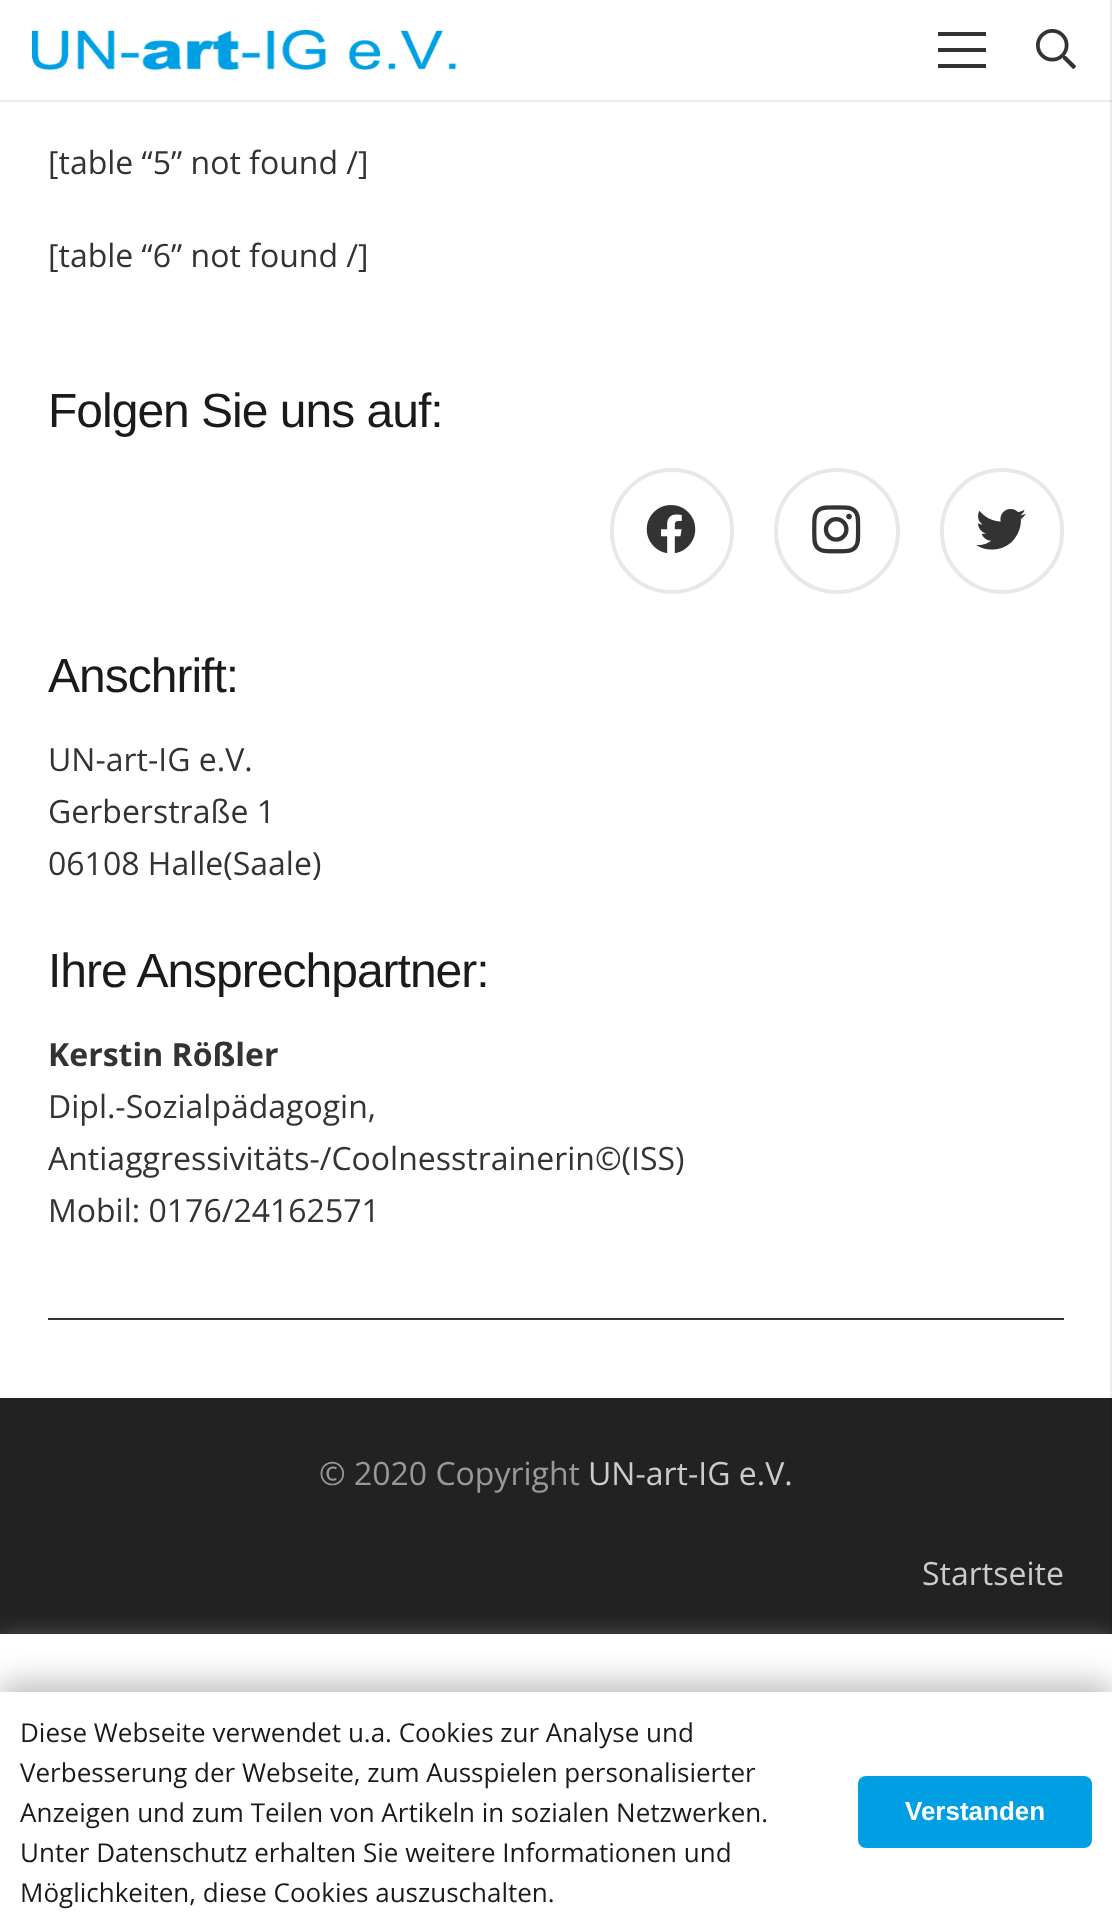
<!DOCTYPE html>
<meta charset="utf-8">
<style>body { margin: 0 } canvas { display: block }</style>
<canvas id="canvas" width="1112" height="1932"></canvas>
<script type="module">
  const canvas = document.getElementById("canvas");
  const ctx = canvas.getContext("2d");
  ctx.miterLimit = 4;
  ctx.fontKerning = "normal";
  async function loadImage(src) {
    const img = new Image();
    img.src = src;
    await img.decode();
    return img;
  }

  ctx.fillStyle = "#ffffff";
  ctx.fillRect(0, 0, 1112, 1932);
  ctx.fillStyle = "#ebebeb";
  ctx.fillRect(1110, 102, 2, 1296);
  ctx.fillRect(0, 100, 1112, 2);
  ctx.fillStyle = "#d8d8d8";
  ctx.fillRect(1110, 100, 2, 2);
  ctx.fillStyle = "#ebebeb";
  ctx.fillRect(1110, 0, 2, 100);
  ctx.drawImage(await loadImage("img1.png"), 32, 30, 424, 40);
  ctx.fillStyle = "#333333";
  ctx.fillRect(938, 48, 48, 4);
  ctx.fillRect(938, 32, 48, 4);
  ctx.fillRect(938, 64, 48, 4);
  ctx.drawImage(await loadImage("img2.png"), 1036, 29, 40, 40);
  ctx.font = "32px Open Sans";
  ctx.fillText("[table “5” not found /]", 48, 174);
  ctx.fillText("[table “6” not found /]", 48, 267);
  ctx.letterSpacing = "-1px";
  ctx.font = "48px Liberation Sans";
  ctx.fillStyle = "#1a1a1a";
  ctx.fillText("Folgen Sie uns auf:", 48, 427);
  ctx.beginPath();
  ctx.roundRect(612, 470, 120, 122, 60);
  ctx.strokeStyle = "#e8e8e8";
  ctx.lineWidth = 4;
  ctx.stroke();
  ctx.drawImage(await loadImage("img3.png"), 646, 505, 50, 49);
  ctx.beginPath();
  ctx.arc(837, 531, 61, 0, Math.PI * 2);
  ctx.stroke();
  ctx.drawImage(await loadImage("img4.png"), 812, 505, 49, 49);
  ctx.beginPath();
  ctx.roundRect(942, 470, 120, 122, 60);
  ctx.stroke();
  ctx.drawImage(await loadImage("img5.png"), 976, 508, 50, 42);
  ctx.fillText("Anschrift:", 48, 692);
  ctx.letterSpacing = "0px";
  ctx.font = "32px Open Sans";
  ctx.fillStyle = "#333333";
  ctx.fillText("UN-art-IG e.V.", 48, 771);
  ctx.fillText("Gerberstraße 1", 48, 823);
  ctx.fillText("06108 Halle(Saale)", 48, 875);
  ctx.letterSpacing = "-1px";
  ctx.font = "48px Liberation Sans";
  ctx.fillStyle = "#1a1a1a";
  ctx.fillText("Ihre Ansprechpartner:", 48, 987);
  ctx.letterSpacing = "0px";
  ctx.font = "bold 32px Open Sans";
  ctx.fillStyle = "#333333";
  ctx.fillText("Kerstin Rößler", 48, 1066);
  ctx.font = "32px Open Sans";
  ctx.fillText("Dipl.-Sozialpädagogin,", 48, 1118);
  ctx.fillText("Antiaggressivitäts-/Coolnesstrainerin©(ISS)", 48, 1170);
  ctx.fillText("Mobil: 0176/24162571", 48, 1222);
  ctx.fillRect(48, 1318, 1016, 2);
  ctx.fillStyle = "#222222";
  ctx.fillRect(0, 1398, 1110, 236);
  ctx.fillStyle = "#1f1f1f";
  ctx.fillRect(1110, 1398, 2, 236);
  ctx.fillStyle = "#999999";
  ctx.fillText("© 2020 Copyright", 319, 1485);
  ctx.fillStyle = "#cccccc";
  ctx.fillText("UN-art-IG e.V.", 588, 1485);
  ctx.fillText("Startseite", 922, 1585);
  ctx.fillStyle = "rgba(172, 171, 171, 0.3)";
  ctx.filter = "blur(10px)";
  ctx.beginPath();
  ctx.rect(0, 1632, 1112, 298);
  ctx.fill();
  ctx.filter = "none";
  ctx.fillStyle = "#ffffff";
  ctx.fillRect(0, 1634, 1112, 58);
  ctx.fillStyle = "rgba(0, 0, 0, 0.25)";
  ctx.filter = "blur(15px)";
  ctx.beginPath();
  ctx.rect(0, 1682, 1112, 240);
  ctx.fill();
  ctx.filter = "none";
  ctx.fillStyle = "#ffffff";
  ctx.fillRect(0, 1692, 1112, 240);
  ctx.font = "26px Open Sans";
  ctx.fillStyle = "#1a1a1a";
  ctx.fillText("Diese Webseite verwendet u.a. Cookies zur Analyse und", 20, 1742);
  ctx.fillText("Verbesserung der Webseite, zum Ausspielen personalisierter", 20, 1782);
  ctx.fillText("Anzeigen und zum Teilen von Artikeln in sozialen Netzwerken.", 20, 1822);
  ctx.fillText("Unter Datenschutz erhalten Sie weitere Informationen und", 20, 1862);
  ctx.fillText("Möglichkeiten, diese Cookies auszuschalten.", 20, 1902);
  ctx.fillStyle = "#009fe3";
  ctx.beginPath();
  ctx.roundRect(858, 1776, 234, 72, 8);
  ctx.fill();
  ctx.font = "bold 26px Liberation Sans";
  ctx.fillStyle = "#ffffff";
  ctx.fillText("Verstanden", 905, 1820);
</script>
